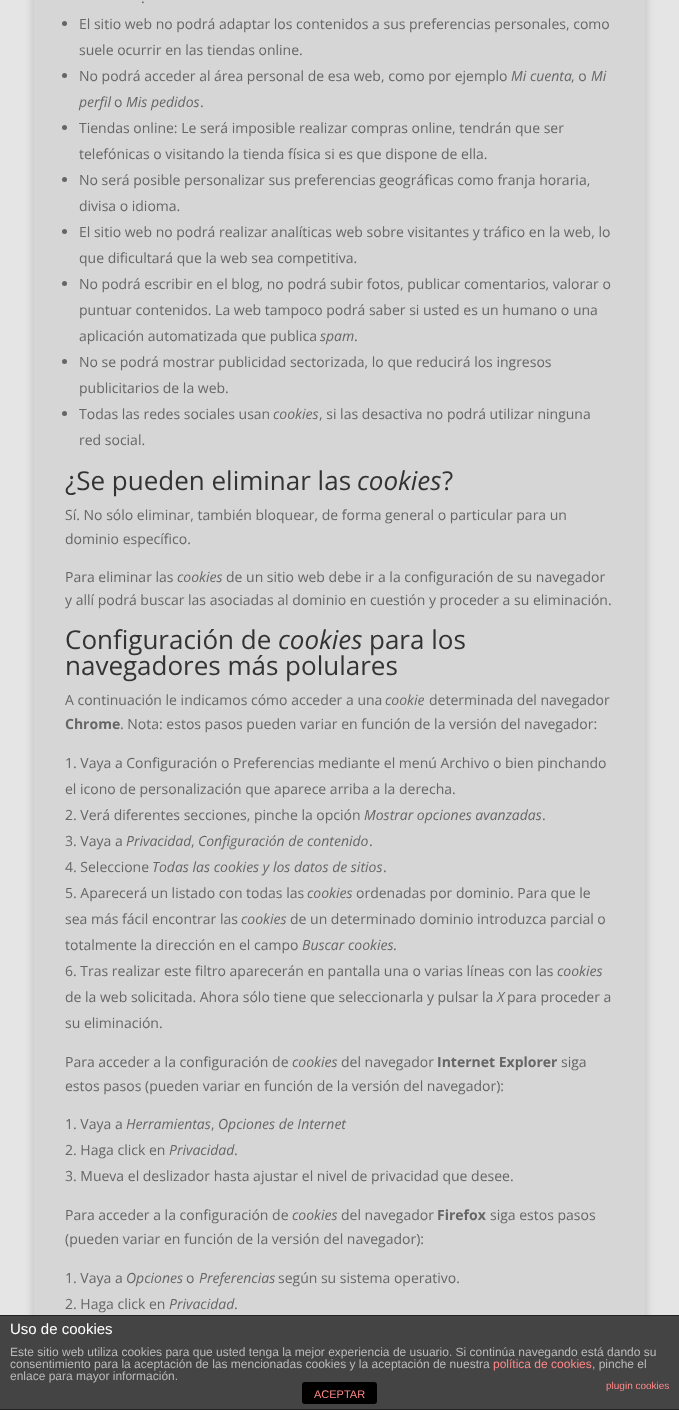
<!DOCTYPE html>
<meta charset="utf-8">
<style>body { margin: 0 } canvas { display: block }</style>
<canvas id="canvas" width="679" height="1410"></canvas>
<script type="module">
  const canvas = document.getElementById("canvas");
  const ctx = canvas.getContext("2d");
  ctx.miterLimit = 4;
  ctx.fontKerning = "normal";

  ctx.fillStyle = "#e5e5e5";
  ctx.fillRect(0, 0, 679, 1410);
  ctx.fillStyle = "rgba(0, 0, 0, 0.2)";
  ctx.filter = "blur(5px)";
  ctx.beginPath();
  ctx.rect(34, -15, 611, 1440);
  ctx.fill();
  ctx.filter = "none";
  ctx.fillStyle = "#d6d6d6";
  ctx.fillRect(34, 0, 611, 1315);
  ctx.font = "14px Open Sans";
  ctx.fillStyle = "#666666";
  ctx.fillText(".", 141, 3);
  ctx.beginPath();
  ctx.arc(64.5, 23.5, 2.5, 0, Math.PI * 2);
  ctx.fill();
  ctx.fillText("El sitio web no podrá adaptar los contenidos a sus preferencias personales, como", 79, 29);
  ctx.fillText("suele ocurrir en las tiendas online.", 79, 55);
  ctx.beginPath();
  ctx.arc(64.5, 75.5, 2.5, 0, Math.PI * 2);
  ctx.fill();
  ctx.fillText("No podrá acceder al área personal de esa web, como por ejemplo", 79, 81);
  ctx.font = "italic 14px Open Sans";
  ctx.fillText("Mi cuenta", 511, 81);
  ctx.font = "14px Open Sans";
  ctx.fillText(", o", 571, 81);
  ctx.font = "italic 14px Open Sans";
  ctx.fillText("Mi", 591, 81);
  ctx.fillText("perfil", 79, 107);
  ctx.font = "14px Open Sans";
  ctx.fillText("o", 114, 107);
  ctx.font = "italic 14px Open Sans";
  ctx.fillText("Mis pedidos", 126, 107);
  ctx.font = "14px Open Sans";
  ctx.fillText(".", 200, 107);
  ctx.beginPath();
  ctx.arc(64.5, 127.5, 2.5, 0, Math.PI * 2);
  ctx.fill();
  ctx.fillText("Tiendas online: Le será imposible realizar compras online, tendrán que ser", 79, 133);
  ctx.fillText("telefónicas o visitando la tienda física si es que dispone de ella.", 79, 159);
  ctx.beginPath();
  ctx.arc(64.5, 179.5, 2.5, 0, Math.PI * 2);
  ctx.fill();
  ctx.fillText("No será posible personalizar sus preferencias geográficas como franja horaria,", 79, 185);
  ctx.fillText("divisa o idioma.", 79, 211);
  ctx.beginPath();
  ctx.arc(64.5, 231.5, 2.5, 0, Math.PI * 2);
  ctx.fill();
  ctx.fillText("El sitio web no podrá realizar analíticas web sobre visitantes y tráfico en la web, lo", 79, 237);
  ctx.fillText("que dificultará que la web sea competitiva.", 79, 263);
  ctx.beginPath();
  ctx.arc(64.5, 283.5, 2.5, 0, Math.PI * 2);
  ctx.fill();
  ctx.fillText("No podrá escribir en el blog, no podrá subir fotos, publicar comentarios, valorar o", 79, 289);
  ctx.fillText("puntuar contenidos. La web tampoco podrá saber si usted es un humano o una", 79, 315);
  ctx.fillText("aplicación automatizada que publica", 79, 341);
  ctx.font = "italic 14px Open Sans";
  ctx.fillText("spam", 320, 341);
  ctx.font = "14px Open Sans";
  ctx.fillText(".", 354, 341);
  ctx.beginPath();
  ctx.arc(64.5, 361.5, 2.5, 0, Math.PI * 2);
  ctx.fill();
  ctx.fillText("No se podrá mostrar publicidad sectorizada, lo que reducirá los ingresos", 79, 367);
  ctx.fillText("publicitarios de la web.", 79, 393);
  ctx.beginPath();
  ctx.arc(64.5, 413.5, 2.5, 0, Math.PI * 2);
  ctx.fill();
  ctx.fillText("Todas las redes sociales usan", 79, 419);
  ctx.font = "italic 14px Open Sans";
  ctx.fillText("cookies", 273, 419);
  ctx.font = "14px Open Sans";
  ctx.fillText(", si las desactiva no podrá utilizar ninguna", 319, 419);
  ctx.fillText("red social.", 79, 445);
  ctx.font = "26px Open Sans";
  ctx.fillStyle = "#333333";
  ctx.fillText("¿Se pueden eliminar las", 65, 490);
  ctx.font = "italic 26px Open Sans";
  ctx.fillText("cookies", 357, 490);
  ctx.font = "26px Open Sans";
  ctx.fillText("?", 442, 490);
  ctx.font = "14px Open Sans";
  ctx.fillStyle = "#666666";
  ctx.fillText("Sí. No sólo eliminar, también bloquear, de forma general o particular para un", 65, 520);
  ctx.fillText("dominio específico.", 65, 544);
  ctx.fillText("Para eliminar las", 65, 582);
  ctx.font = "italic 14px Open Sans";
  ctx.fillText("cookies", 177, 582);
  ctx.font = "14px Open Sans";
  ctx.fillText("de un sitio web debe ir a la configuración de su navegador", 226, 582);
  ctx.fillText("y allí podrá buscar las asociadas al dominio en cuestión y proceder a su eliminación.", 65, 605);
  ctx.font = "26px Open Sans";
  ctx.fillStyle = "#333333";
  ctx.fillText("Configuración de", 65, 649);
  ctx.font = "italic 26px Open Sans";
  ctx.fillText("cookies", 278, 649);
  ctx.font = "26px Open Sans";
  ctx.fillText("para los", 369, 649);
  ctx.fillText("navegadores más polulares", 65, 675);
  ctx.font = "14px Open Sans";
  ctx.fillStyle = "#666666";
  ctx.fillText("A continuación le indicamos cómo acceder a una", 65, 705);
  ctx.font = "italic 14px Open Sans";
  ctx.fillText("cookie", 385, 705);
  ctx.font = "14px Open Sans";
  ctx.fillText("determinada del navegador", 429, 705);
  ctx.font = "bold 14px Open Sans";
  ctx.fillText("Chrome", 65, 729);
  ctx.font = "14px Open Sans";
  ctx.fillText(". Nota: estos pasos pueden variar en función de la versión del navegador:", 120, 729);
  ctx.fillText("1. Vaya a Configuración o Preferencias mediante el menú Archivo o bien pinchando", 65, 768);
  ctx.fillText("el icono de personalización que aparece arriba a la derecha.", 65, 794);
  ctx.fillText("2. Verá diferentes secciones, pinche la opción", 65, 820);
  ctx.font = "italic 14px Open Sans";
  ctx.fillText("Mostrar opciones avanzadas", 364, 820);
  ctx.font = "14px Open Sans";
  ctx.fillText(".", 542, 820);
  ctx.fillText("3. Vaya a", 65, 846);
  ctx.font = "italic 14px Open Sans";
  ctx.fillText("Privacidad", 126, 846);
  ctx.font = "14px Open Sans";
  ctx.fillText(",", 191, 846);
  ctx.font = "italic 14px Open Sans";
  ctx.fillText("Configuración de contenido", 198, 846);
  ctx.font = "14px Open Sans";
  ctx.fillText(".", 369, 846);
  ctx.fillText("4. Seleccione", 65, 872);
  ctx.font = "italic 14px Open Sans";
  ctx.fillText("Todas las cookies y los datos de sitios", 152, 872);
  ctx.font = "14px Open Sans";
  ctx.fillText(".", 383, 872);
  ctx.fillText("5. Aparecerá un listado con todas las", 65, 898);
  ctx.font = "italic 14px Open Sans";
  ctx.fillText("cookies", 307, 898);
  ctx.font = "14px Open Sans";
  ctx.fillText("ordenadas por dominio. Para que le", 356, 898);
  ctx.fillText("sea más fácil encontrar las", 65, 924);
  ctx.font = "italic 14px Open Sans";
  ctx.fillText("cookies", 241, 924);
  ctx.font = "14px Open Sans";
  ctx.fillText("de un determinado dominio introduzca parcial o", 290, 924);
  ctx.fillText("totalmente la dirección en el campo", 65, 950);
  ctx.font = "italic 14px Open Sans";
  ctx.fillText("Buscar cookies", 302, 950);
  ctx.font = "14px Open Sans";
  ctx.fillText(".", 393, 950);
  ctx.fillText("6. Tras realizar este filtro aparecerán en pantalla una o varias líneas con las", 65, 976);
  ctx.font = "italic 14px Open Sans";
  ctx.fillText("cookies", 557, 976);
  ctx.font = "14px Open Sans";
  ctx.fillText("de la web solicitada. Ahora sólo tiene que seleccionarla y pulsar la", 65, 1002);
  ctx.font = "italic 14px Open Sans";
  ctx.fillText("X", 497, 1002);
  ctx.font = "14px Open Sans";
  ctx.fillText("para proceder a", 507, 1002);
  ctx.fillText("su eliminación.", 65, 1028);
  ctx.fillText("Para acceder a la configuración de", 65, 1067);
  ctx.font = "italic 14px Open Sans";
  ctx.fillText("cookies", 292, 1067);
  ctx.font = "14px Open Sans";
  ctx.fillText("del navegador", 341, 1067);
  ctx.font = "bold 14px Open Sans";
  ctx.fillText("Internet Explorer", 437, 1067);
  ctx.font = "14px Open Sans";
  ctx.fillText("siga", 561, 1067);
  ctx.fillText("estos pasos (pueden variar en función de la versión del navegador):", 65, 1091);
  ctx.fillText("1. Vaya a", 65, 1129);
  ctx.font = "italic 14px Open Sans";
  ctx.fillText("Herramientas", 126, 1129);
  ctx.font = "14px Open Sans";
  ctx.fillText(",", 211, 1129);
  ctx.font = "italic 14px Open Sans";
  ctx.fillText("Opciones de Internet", 218, 1129);
  ctx.font = "14px Open Sans";
  ctx.fillText("2. Haga click en", 65, 1155);
  ctx.font = "italic 14px Open Sans";
  ctx.fillText("Privacidad", 169, 1155);
  ctx.font = "14px Open Sans";
  ctx.fillText(".", 234, 1155);
  ctx.fillText("3. Mueva el deslizador hasta ajustar el nivel de privacidad que desee.", 65, 1181);
  ctx.fillText("Para acceder a la configuración de", 65, 1220);
  ctx.font = "italic 14px Open Sans";
  ctx.fillText("cookies", 292, 1220);
  ctx.font = "14px Open Sans";
  ctx.fillText("del navegador", 341, 1220);
  ctx.font = "bold 14px Open Sans";
  ctx.fillText("Firefox", 437, 1220);
  ctx.font = "14px Open Sans";
  ctx.fillText("siga estos pasos", 490, 1220);
  ctx.fillText("(pueden variar en función de la versión del navegador):", 65, 1244);
  ctx.fillText("1. Vaya a", 65, 1283);
  ctx.font = "italic 14px Open Sans";
  ctx.fillText("Opciones", 126, 1283);
  ctx.font = "14px Open Sans";
  ctx.fillText("o", 186, 1283);
  ctx.font = "italic 14px Open Sans";
  ctx.fillText("Preferencias", 199, 1283);
  ctx.font = "14px Open Sans";
  ctx.fillText("según su sistema operativo.", 278, 1283);
  ctx.fillText("2. Haga click en", 65, 1309);
  ctx.font = "italic 14px Open Sans";
  ctx.fillText("Privacidad", 169, 1309);
  ctx.font = "14px Open Sans";
  ctx.fillText(".", 234, 1309);
  ctx.fillStyle = "#444444";
  ctx.fillRect(0, 1316, 679, 93);
  ctx.fillStyle = "#222222";
  ctx.fillRect(0, 1315, 679, 1);
  ctx.fillRect(0, 1409, 679, 1);
  ctx.font = "15px Liberation Sans";
  ctx.fillStyle = "#ffffff";
  ctx.fillText("Uso de cookies", 10, 1334);
  ctx.font = "12px Liberation Sans";
  ctx.fillStyle = "#bbbbbb";
  ctx.fillText("Este sitio web utiliza cookies para que usted tenga la mejor experiencia de usuario. Si continúa navegando está dando su", 10, 1356);
  ctx.fillText("consentimiento para la aceptación de las mencionadas cookies y la aceptación de nuestra", 10, 1368);
  ctx.fillStyle = "#ff8888";
  ctx.fillText("política de cookies", 493, 1368);
  ctx.fillStyle = "#bbbbbb";
  ctx.fillText(", pinche el", 592, 1368);
  ctx.fillText("enlace para mayor información.", 10, 1380);
  ctx.font = "10px Liberation Sans";
  ctx.fillStyle = "#ff8888";
  ctx.fillText("plugin cookies", 606, 1389);
  ctx.fillStyle = "#000000";
  ctx.beginPath();
  ctx.roundRect(302, 1382, 75, 22, 3);
  ctx.fill();
  ctx.font = "11px Liberation Sans";
  ctx.fillStyle = "#ff8888";
  ctx.fillText("ACEPTAR", 314, 1398);
</script>
